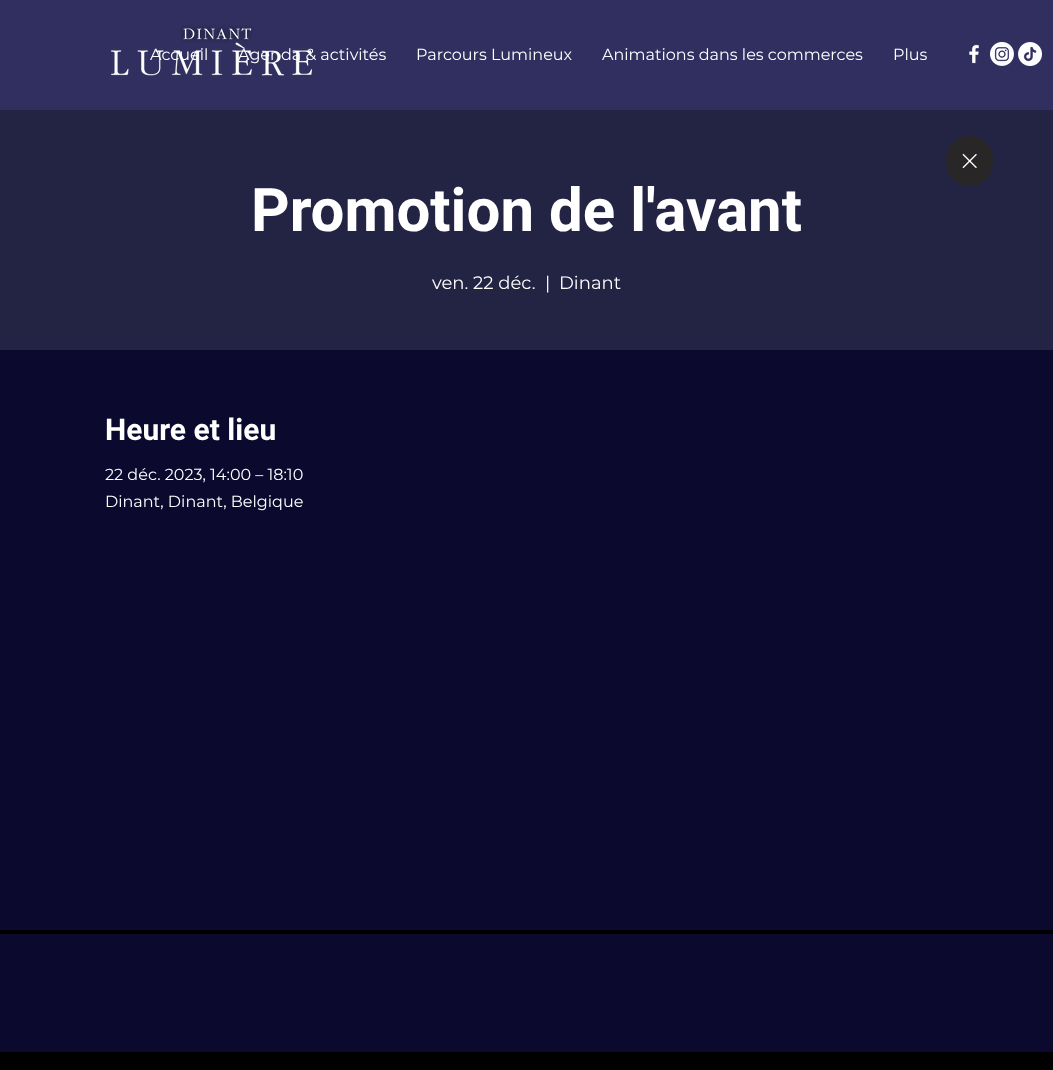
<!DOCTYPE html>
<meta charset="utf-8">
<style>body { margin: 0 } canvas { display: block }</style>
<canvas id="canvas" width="1053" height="1070"></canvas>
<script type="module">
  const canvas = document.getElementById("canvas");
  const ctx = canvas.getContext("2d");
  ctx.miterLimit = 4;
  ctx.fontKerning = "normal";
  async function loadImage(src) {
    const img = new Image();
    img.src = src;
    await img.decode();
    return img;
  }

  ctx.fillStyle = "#000000";
  ctx.fillRect(0, 0, 1053, 1070);
  ctx.fillStyle = "#302f5f";
  ctx.fillRect(0, 0, 1053, 110);
  ctx.drawImage(await loadImage("img1.png"), 111, 25, 201, 51);
  ctx.drawImage(await loadImage("img2.png"), 969, 44, 10, 20);
  ctx.drawImage(await loadImage("img3.png"), 990, 42, 24, 24);
  ctx.drawImage(await loadImage("img4.png"), 1018, 42, 24, 24);
  ctx.font = "16px Montserrat";
  ctx.fillStyle = "#ffffff";
  ctx.fillText("Accueil", 150, 60);
  ctx.fillText("Agenda & activités", 238, 60);
  ctx.fillText("Parcours Lumineux", 416, 60);
  ctx.fillText("Animations dans les commerces", 602, 60);
  ctx.fillText("Plus", 893, 60);
  ctx.fillStyle = "#232343";
  ctx.fillRect(0, 110, 1053, 240);
  ctx.fillStyle = "#282626";
  ctx.beginPath();
  ctx.roundRect(946, 136, 47, 50, 23.5);
  ctx.fill();
  ctx.drawImage(await loadImage("img5.png"), 962, 153, 15, 16);
  ctx.font = "bold 60px Roboto";
  ctx.fillStyle = "#ffffff";
  ctx.fillText("Promotion de l'avant", 251, 231);
  ctx.font = "18px Montserrat";
  ctx.fillText("ven. 22 déc.", 432, 289);
  ctx.fillText("|", 545, 289);
  ctx.fillText("Dinant", 559, 289);
  ctx.fillStyle = "#0b0a2e";
  ctx.fillRect(0, 350, 1053, 580);
  ctx.font = "bold 30px Roboto";
  ctx.fillStyle = "#ffffff";
  ctx.fillText("Heure et lieu", 105, 440);
  ctx.font = "16px Montserrat";
  ctx.fillText("22 déc. 2023, 14:00 – 18:10", 105, 480);
  ctx.fillText("Dinant, Dinant, Belgique", 105, 507);
  ctx.fillStyle = "#0b0a2e";
  ctx.fillRect(0, 934, 1053, 118);
</script>
